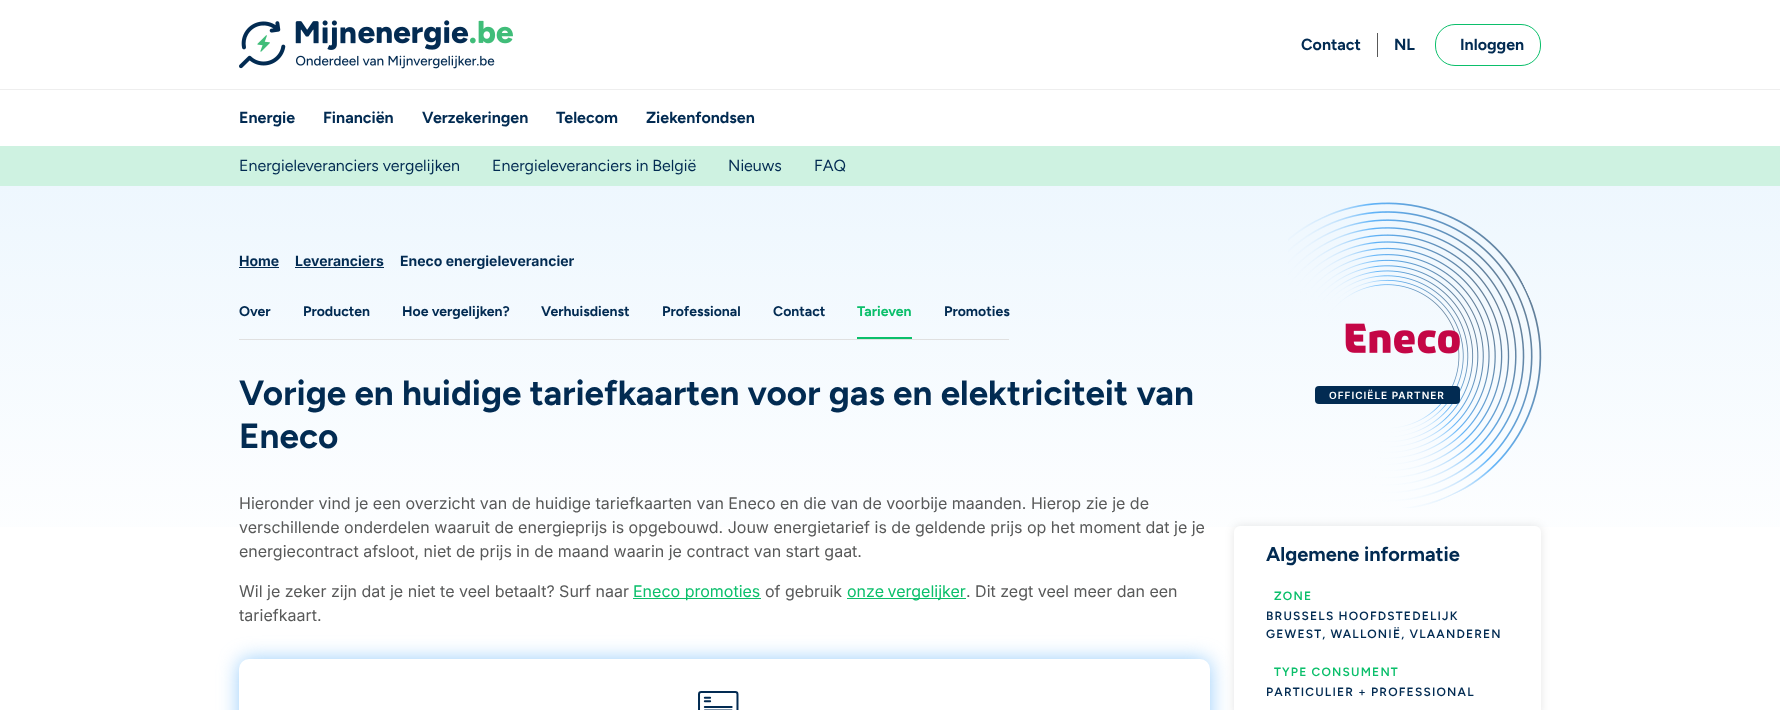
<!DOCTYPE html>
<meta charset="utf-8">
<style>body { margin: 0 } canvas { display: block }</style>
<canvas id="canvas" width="1780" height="710"></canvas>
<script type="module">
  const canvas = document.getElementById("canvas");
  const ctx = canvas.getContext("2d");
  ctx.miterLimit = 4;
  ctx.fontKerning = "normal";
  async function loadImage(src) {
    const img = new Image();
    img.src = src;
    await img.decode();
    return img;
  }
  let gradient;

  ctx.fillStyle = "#ffffff";
  ctx.fillRect(0, 0, 1780, 710);
  ctx.fillStyle = "#eeeeee";
  ctx.fillRect(0, 89, 1780, 1);
  ctx.drawImage(await loadImage("img1.png"), 239, 20, 274, 49);
  ctx.font = "bold 16px Figtree";
  ctx.fillStyle = "#022b52";
  ctx.fillText("Contact", 1301, 50);
  ctx.fillStyle = "#595959";
  ctx.fillRect(1377, 33, 1, 24);
  ctx.fillStyle = "#022b52";
  ctx.fillText("NL", 1394, 50);
  ctx.beginPath();
  ctx.roundRect(1435.5, 24.5, 105, 41, 19.5);
  ctx.strokeStyle = "#0bbf6b";
  ctx.stroke();
  ctx.fillText("Inloggen", 1460, 50);
  ctx.fillText("Energie", 239, 123);
  ctx.fillText("Financiën", 323, 123);
  ctx.fillText("Verzekeringen", 422, 123);
  ctx.fillText("Telecom", 556, 123);
  ctx.fillText("Ziekenfondsen", 646, 123);
  ctx.fillStyle = "#cef2e1";
  ctx.fillRect(0, 146, 1780, 40);
  ctx.font = "16px Figtree";
  ctx.fillStyle = "#022b52";
  ctx.fillText("Energieleveranciers vergelijken", 239, 171);
  ctx.fillText("Energieleveranciers in België", 492, 171);
  ctx.fillText("Nieuws", 728, 171);
  ctx.fillText("FAQ", 814, 171);
  gradient = ctx.createLinearGradient(890, 186, 890, 586);
  gradient.addColorStop(0, "#eef7fe");
  gradient.addColorStop(1, "#ffffff");
  ctx.fillStyle = gradient;
  ctx.fillRect(0, 186, 1780, 341);
  ctx.font = "bold 14px Inter";
  ctx.fillStyle = "#022b52";
  ctx.fillText("Home", 239, 266);
  ctx.fillRect(239, 267, 40, 1);
  ctx.fillText("Leveranciers", 295, 266);
  ctx.fillRect(295, 267, 89, 1);
  ctx.fillText("Eneco energieleverancier", 400, 266);
  ctx.fillStyle = "#e0e0e0";
  ctx.fillRect(239, 339, 770, 1);
  ctx.font = "bold 14px Figtree";
  ctx.fillStyle = "#022b52";
  ctx.fillText("Over", 239, 316);
  ctx.fillText("Producten", 303, 316);
  ctx.fillText("Hoe vergelijken?", 402, 316);
  ctx.fillText("Verhuisdienst", 541, 316);
  ctx.fillText("Professional", 662, 316);
  ctx.fillText("Contact", 773, 316);
  ctx.fillStyle = "#0bbf6b";
  ctx.fillRect(857, 337, 55, 2);
  ctx.fillText("Tarieven", 857, 316);
  ctx.fillStyle = "#022b52";
  ctx.fillText("Promoties", 944, 316);
  ctx.font = "bold 35px Figtree";
  ctx.fillText("Vorige en huidige tariefkaarten voor gas en elektriciteit van", 239, 405);
  ctx.fillText("Eneco", 239, 448);
  ctx.font = "16px Inter";
  ctx.fillStyle = "#585959";
  ctx.fillText("Hieronder vind je een overzicht van de huidige tariefkaarten van Eneco en die van de voorbije maanden. Hierop zie je de", 239, 509);
  ctx.fillText("verschillende onderdelen waaruit de energieprijs is opgebouwd. Jouw energietarief is de geldende prijs op het moment dat je je", 239, 533);
  ctx.fillText("energiecontract afsloot, niet de prijs in de maand waarin je contract van start gaat.", 239, 557);
  ctx.fillText("Wil je zeker zijn dat je niet te veel betaalt? Surf naar", 239, 597);
  ctx.fillStyle = "#0bbf6b";
  ctx.fillRect(633, 598, 128, 1);
  ctx.fillText("Eneco promoties", 633, 597);
  ctx.fillStyle = "#585959";
  ctx.fillText("of gebruik", 765, 597);
  ctx.fillStyle = "#0bbf6b";
  ctx.fillRect(847, 598, 119, 1);
  ctx.wordSpacing = "-1px";
  ctx.fillText("onze vergelijker", 847, 597);
  ctx.wordSpacing = "0px";
  ctx.fillStyle = "#585959";
  ctx.fillText(". Dit zegt veel meer dan een", 966, 597);
  ctx.fillText("tariefkaart.", 239, 621);
  ctx.fillStyle = "rgba(108, 185, 249, 0.7)";
  ctx.filter = "blur(10px)";
  ctx.beginPath();
  ctx.roundRect(239, 659, 971, 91, 10);
  ctx.fill();
  ctx.filter = "none";
  ctx.fillStyle = "#ffffff";
  ctx.beginPath();
  ctx.roundRect(239, 659, 971, 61, 10);
  ctx.fill();
  ctx.drawImage(await loadImage("img2.png"), 698, 691, 41, 19);
  ctx.drawImage(await loadImage("img3.png"), 1288, 202, 254, 306);
  ctx.drawImage(await loadImage("img4.png"), 1345, 323, 115, 31);
  ctx.fillStyle = "#022b52";
  ctx.beginPath();
  ctx.roundRect(1315, 386, 145, 18, 4);
  ctx.fill();
  ctx.letterSpacing = "1px";
  ctx.font = "600 10px Inter";
  ctx.fillStyle = "#ffffff";
  ctx.fillText("OFFICIËLE PARTNER", 1329, 399);
  ctx.fillStyle = "rgba(0, 0, 0, 0.1)";
  ctx.filter = "blur(5px)";
  ctx.beginPath();
  ctx.roundRect(1234, 526, 307, 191, 6);
  ctx.fill();
  ctx.filter = "none";
  ctx.fillStyle = "#ffffff";
  ctx.beginPath();
  ctx.roundRect(1234, 526, 307, 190, 6);
  ctx.fill();
  ctx.letterSpacing = "0px";
  ctx.font = "bold 20px Figtree";
  ctx.fillStyle = "#022b52";
  ctx.fillText("Algemene informatie", 1266, 561);
  ctx.letterSpacing = "1.2px";
  ctx.font = "600 12px Figtree";
  ctx.fillStyle = "#0bbf6b";
  ctx.fillText("ZONE", 1274, 600);
  ctx.fillStyle = "#022b52";
  ctx.fillText("BRUSSELS HOOFDSTEDELIJK", 1266, 620);
  ctx.fillText("GEWEST, WALLONIË, VLAANDEREN", 1266, 638);
  ctx.fillStyle = "#0bbf6b";
  ctx.fillText("TYPE CONSUMENT", 1274, 676);
  ctx.fillStyle = "#022b52";
  ctx.fillText("PARTICULIER + PROFESSIONAL", 1266, 696);
</script>
